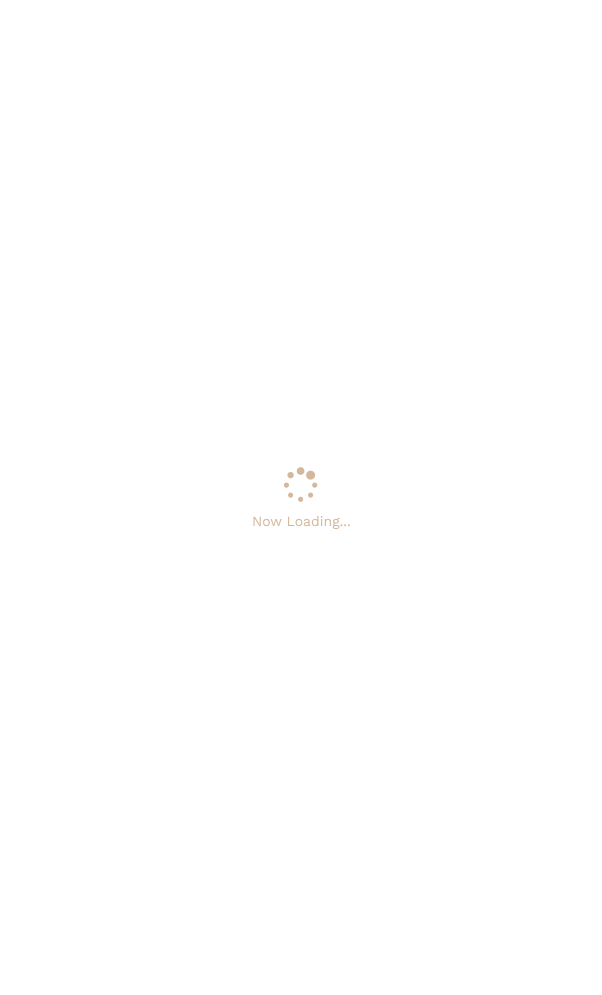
<!DOCTYPE html>
<meta charset="utf-8">
<style>body { margin: 0 } canvas { display: block }</style>
<canvas id="canvas" width="602" height="995"></canvas>
<script type="module">
  const canvas = document.getElementById("canvas");
  const ctx = canvas.getContext("2d");
  ctx.miterLimit = 4;
  ctx.fontKerning = "normal";
  async function loadImage(src) {
    const img = new Image();
    img.src = src;
    await img.decode();
    return img;
  }

  ctx.fillStyle = "#ffffff";
  ctx.fillRect(0, 0, 602, 995);
  ctx.drawImage(await loadImage("img1.png"), 283, 467, 35, 35);
  ctx.font = "14px Work Sans";
  ctx.fillStyle = "#d4b89d";
  ctx.fillText("Now Loading...", 252, 526);
</script>
